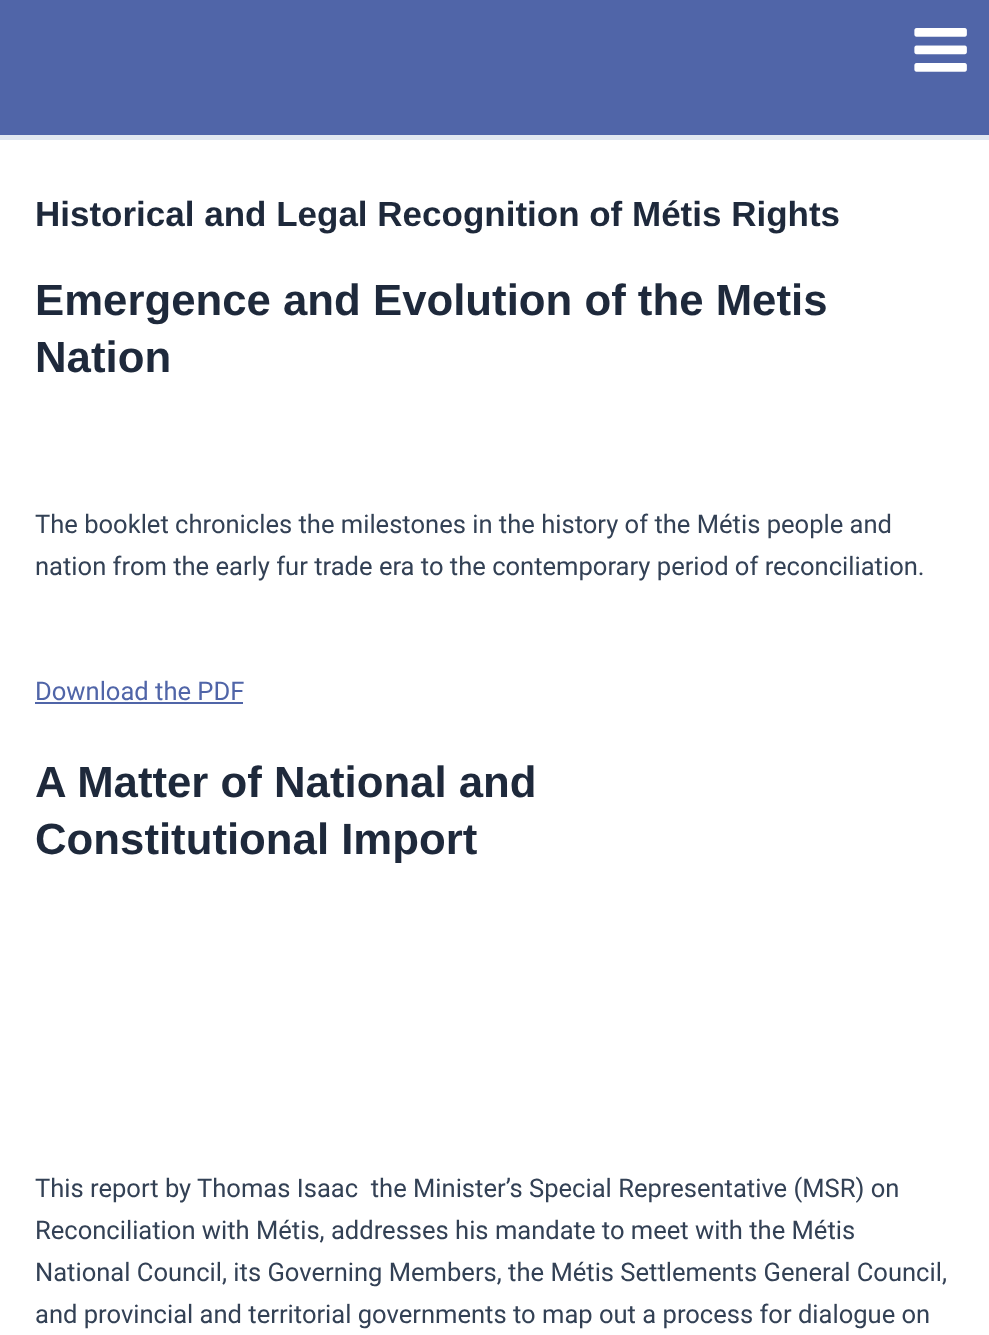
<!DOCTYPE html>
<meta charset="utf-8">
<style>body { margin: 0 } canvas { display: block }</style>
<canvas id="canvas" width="989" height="1335"></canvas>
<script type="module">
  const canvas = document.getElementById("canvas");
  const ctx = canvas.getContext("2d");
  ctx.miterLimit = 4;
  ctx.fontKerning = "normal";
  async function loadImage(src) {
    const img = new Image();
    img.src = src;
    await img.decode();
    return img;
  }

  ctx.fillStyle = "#ffffff";
  ctx.fillRect(0, 0, 989, 1335);
  ctx.fillStyle = "#5065a8";
  ctx.fillRect(0, 0, 989, 135);
  ctx.fillStyle = "#e2e8f0";
  ctx.fillRect(0, 135, 989, 5);
  ctx.drawImage(await loadImage("img1.png"), 914, 28, 53, 44);
  ctx.font = "bold 35px Liberation Sans";
  ctx.fillStyle = "#1e293b";
  ctx.fillText("Historical and Legal Recognition of Métis Rights", 35, 226);
  ctx.font = "bold 43.75px Liberation Sans";
  ctx.fillText("Emergence and Evolution of the Metis", 35, 315);
  ctx.fillText("Nation", 35, 372);
  ctx.font = "25.55px Roboto";
  ctx.fillStyle = "#334155";
  ctx.fillText("The booklet chronicles the milestones in the history of the Métis people and", 35, 533);
  ctx.fillText("nation from the early fur trade era to the contemporary period of reconciliation.", 35, 575);
  ctx.fillStyle = "#5065a8";
  ctx.fillText("Download the PDF", 35, 700);
  ctx.fillRect(35, 702, 208, 2);
  ctx.font = "bold 43.75px Liberation Sans";
  ctx.fillStyle = "#1e293b";
  ctx.fillText("A Matter of National and", 35, 797);
  ctx.fillText("Constitutional Import", 35, 854);
  ctx.font = "25.55px Roboto";
  ctx.fillStyle = "#334155";
  ctx.fillText("This report by Thomas Isaac  the Minister’s Special Representative (MSR) on", 35, 1197);
  ctx.fillText("Reconciliation with Métis, addresses his mandate to meet with the Métis", 35, 1239);
  ctx.fillText("National Council, its Governing Members, the Métis Settlements General Council,", 35, 1281);
  ctx.fillText("and provincial and territorial governments to map out a process for dialogue on", 35, 1323);
</script>
